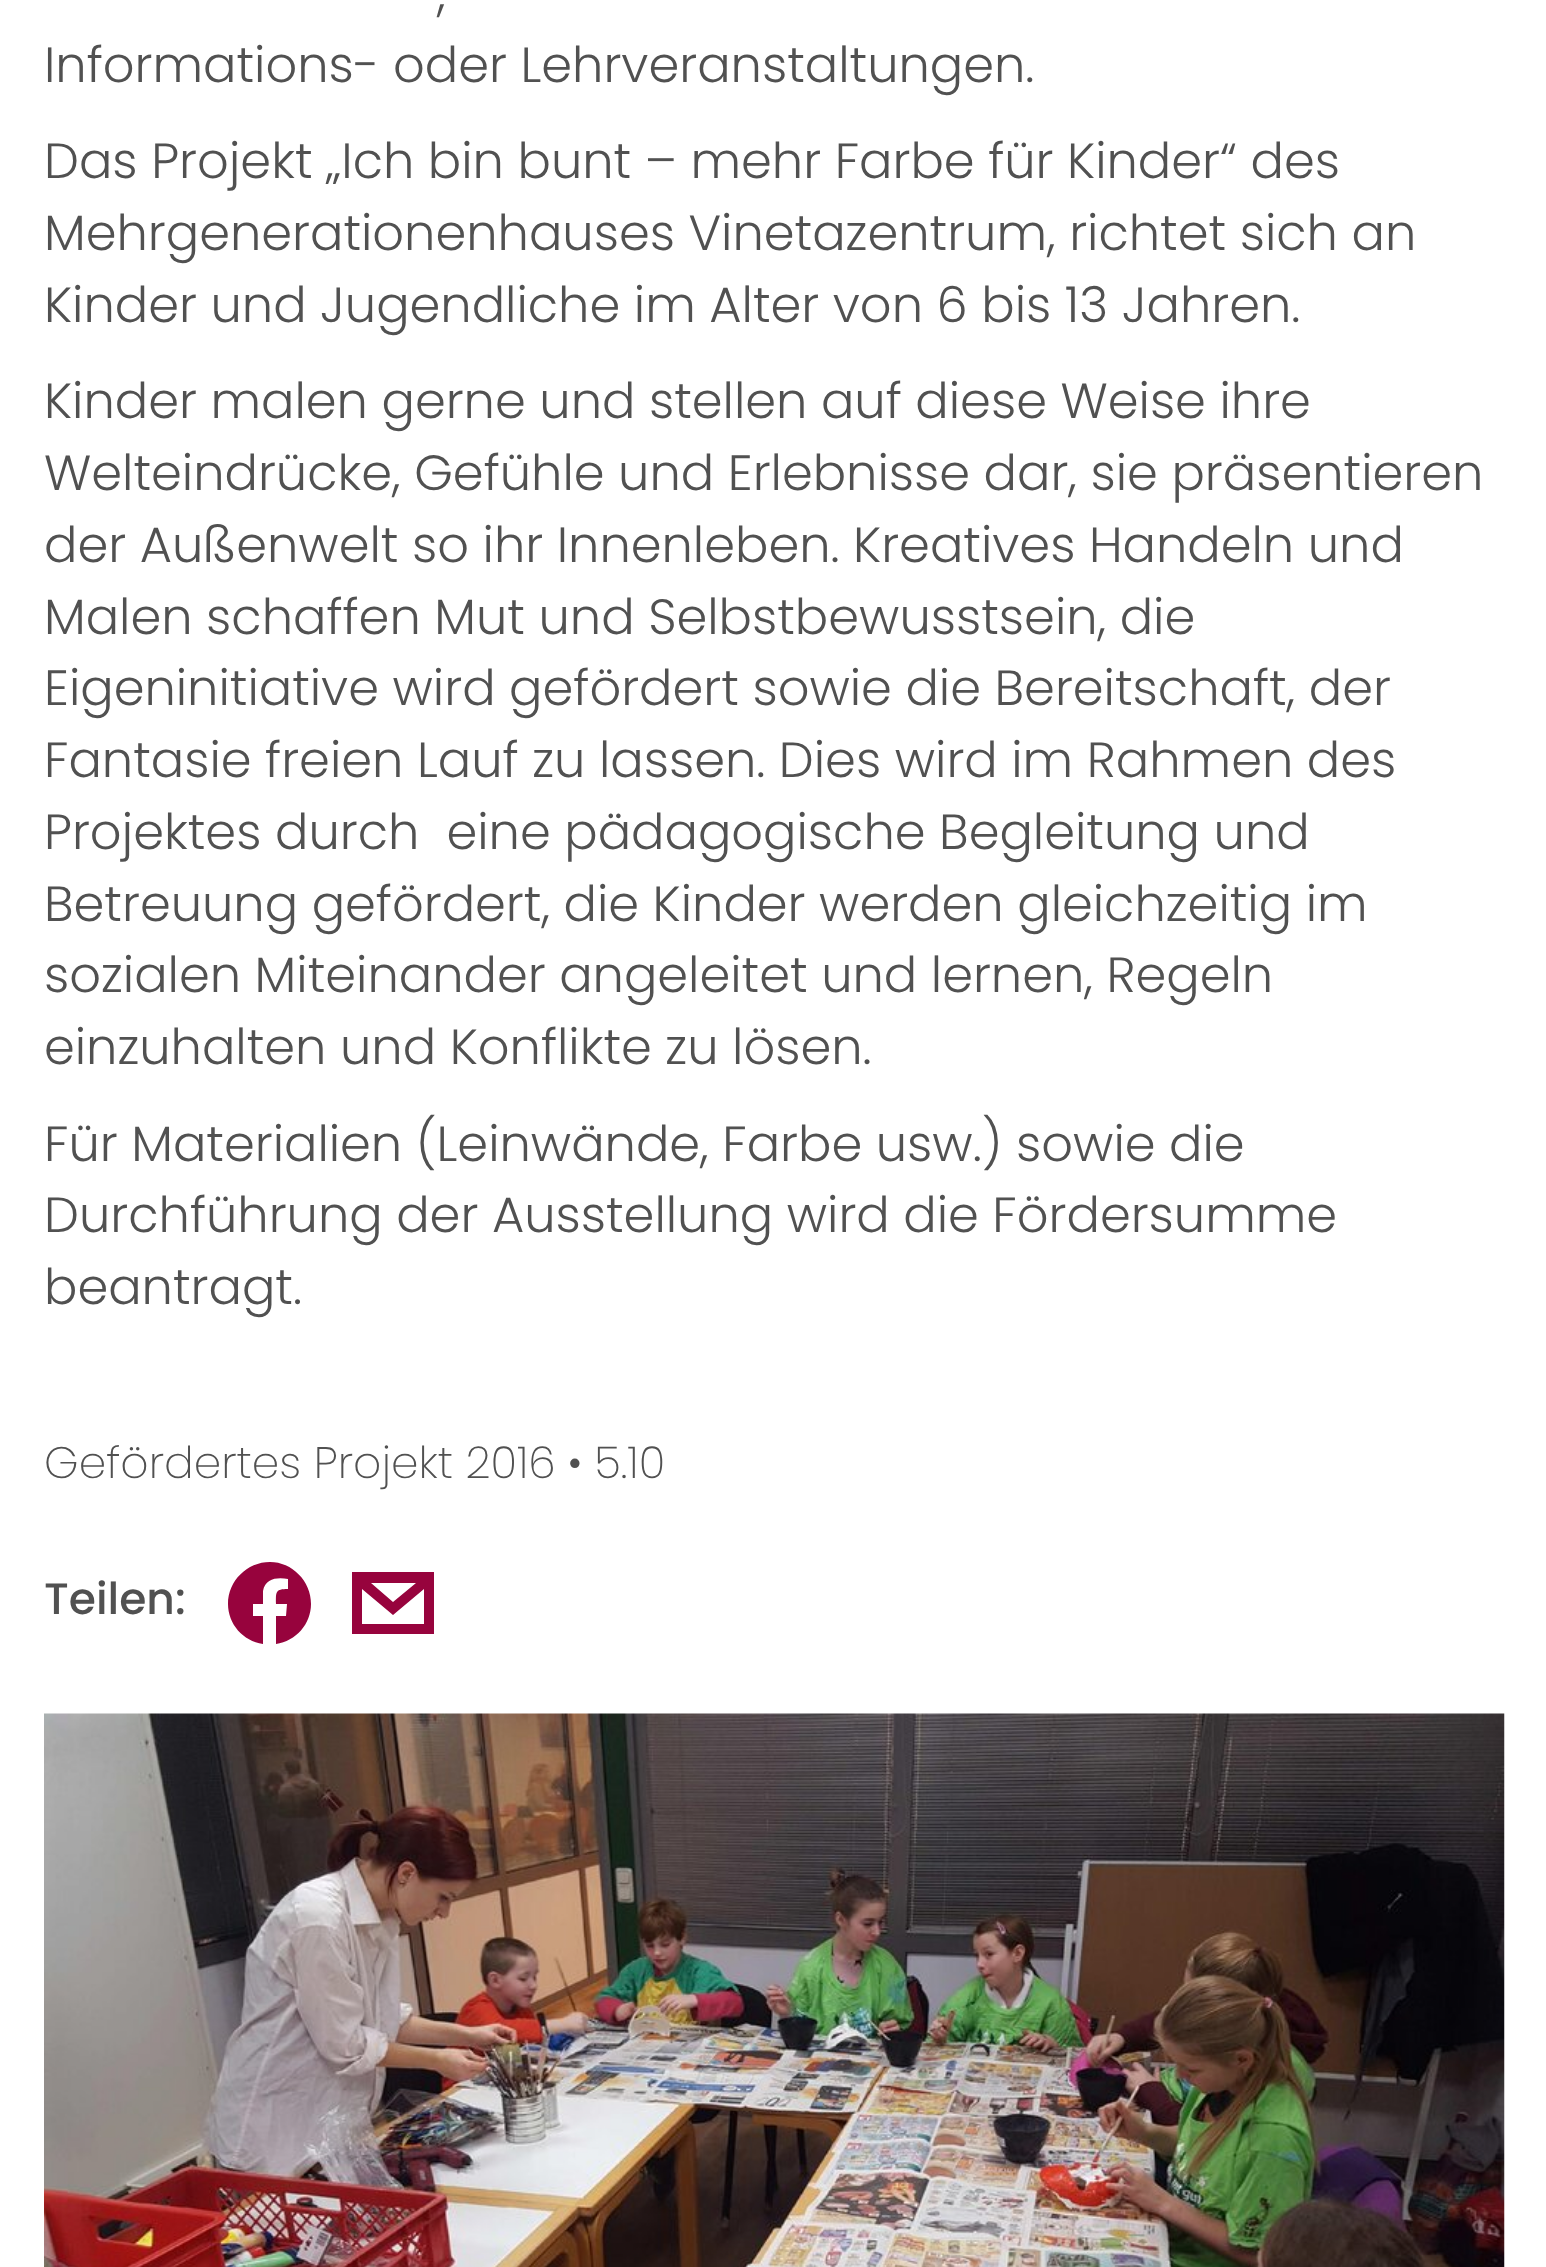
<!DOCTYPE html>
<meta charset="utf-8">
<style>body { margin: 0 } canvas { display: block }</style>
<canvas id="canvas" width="1546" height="2267"></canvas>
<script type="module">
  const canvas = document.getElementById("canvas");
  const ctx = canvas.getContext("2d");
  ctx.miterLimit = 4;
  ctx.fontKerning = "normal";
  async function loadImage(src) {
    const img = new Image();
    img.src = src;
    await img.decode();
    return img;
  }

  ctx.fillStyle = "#ffffff";
  ctx.fillRect(0, 0, 1546, 2267);
  ctx.font = "300 49.5px Poppins";
  ctx.fillStyle = "#515151";
  ctx.fillText(",", 437, 10);
  ctx.fillText("Informations- oder Lehrveranstaltungen.", 44, 82);
  ctx.fillText("Das Projekt „Ich bin bunt – mehr Farbe für Kinder“ des", 44, 178);
  ctx.fillText("Mehrgenerationenhauses Vinetazentrum, richtet sich an", 44, 250);
  ctx.fillText("Kinder und Jugendliche im Alter von 6 bis 13 Jahren.", 44, 322);
  ctx.fillText("Kinder malen gerne und stellen auf diese Weise ihre", 44, 418);
  ctx.fillText("Welteindrücke, Gefühle und Erlebnisse dar, sie präsentieren", 44, 490);
  ctx.fillText("der Außenwelt so ihr Innenleben. Kreatives Handeln und", 44, 562);
  ctx.fillText("Malen schaffen Mut und Selbstbewusstsein, die", 44, 634);
  ctx.fillText("Eigeninitiative wird gefördert sowie die Bereitschaft, der", 44, 705);
  ctx.fillText("Fantasie freien Lauf zu lassen. Dies wird im Rahmen des", 44, 777);
  ctx.fillText("Projektes durch  eine pädagogische Begleitung und", 44, 849);
  ctx.fillText("Betreuung gefördert, die Kinder werden gleichzeitig im", 44, 921);
  ctx.fillText("sozialen Miteinander angeleitet und lernen, Regeln", 44, 992);
  ctx.fillText("einzuhalten und Konflikte zu lösen.", 44, 1064);
  ctx.fillText("Für Materialien (Leinwände, Farbe usw.) sowie die", 44, 1161);
  ctx.fillText("Durchführung der Ausstellung wird die Fördersumme", 44, 1232);
  ctx.fillText("beantragt.", 44, 1304);
  ctx.font = "200 44px Poppins";
  ctx.fillText("Gefördertes Projekt 2016 • 5.10", 44, 1478);
  ctx.font = "500 44px Poppins";
  ctx.fillText("Teilen:", 44, 1614);
  ctx.fillStyle = "#97033d";
  ctx.beginPath();
  ctx.moveTo(311, 1604);
  ctx.bezierCurveTo(311, 1581, 292, 1562, 270, 1562);
  ctx.bezierCurveTo(247, 1562, 228, 1581, 228, 1604);
  ctx.bezierCurveTo(228, 1624, 243, 1641, 263, 1644);
  ctx.lineTo(263, 1616);
  ctx.lineTo(253, 1616);
  ctx.lineTo(253, 1604);
  ctx.lineTo(263, 1604);
  ctx.lineTo(263, 1591);
  ctx.bezierCurveTo(265, 1578, 278, 1577, 288, 1579);
  ctx.lineTo(288, 1589);
  ctx.bezierCurveTo(275, 1589, 276, 1592, 276, 1604);
  ctx.lineTo(287, 1604);
  ctx.lineTo(286, 1616);
  ctx.lineTo(276, 1616);
  ctx.lineTo(276, 1644);
  ctx.bezierCurveTo(296, 1641, 311, 1624, 311, 1604);
  ctx.fill("evenodd");
  ctx.beginPath();
  ctx.moveTo(352, 1634);
  ctx.lineTo(434, 1634);
  ctx.lineTo(434, 1572);
  ctx.lineTo(352, 1572);
  ctx.closePath();
  ctx.moveTo(371, 1583);
  ctx.lineTo(416, 1583);
  ctx.lineTo(393, 1602);
  ctx.closePath();
  ctx.moveTo(424, 1589);
  ctx.lineTo(424, 1624);
  ctx.lineTo(362, 1624);
  ctx.lineTo(362, 1589);
  ctx.lineTo(393, 1615);
  ctx.closePath();
  ctx.fill("evenodd");
  ctx.drawImage(await loadImage("img1.png"), 44, 1713, 1461, 554);
</script>
